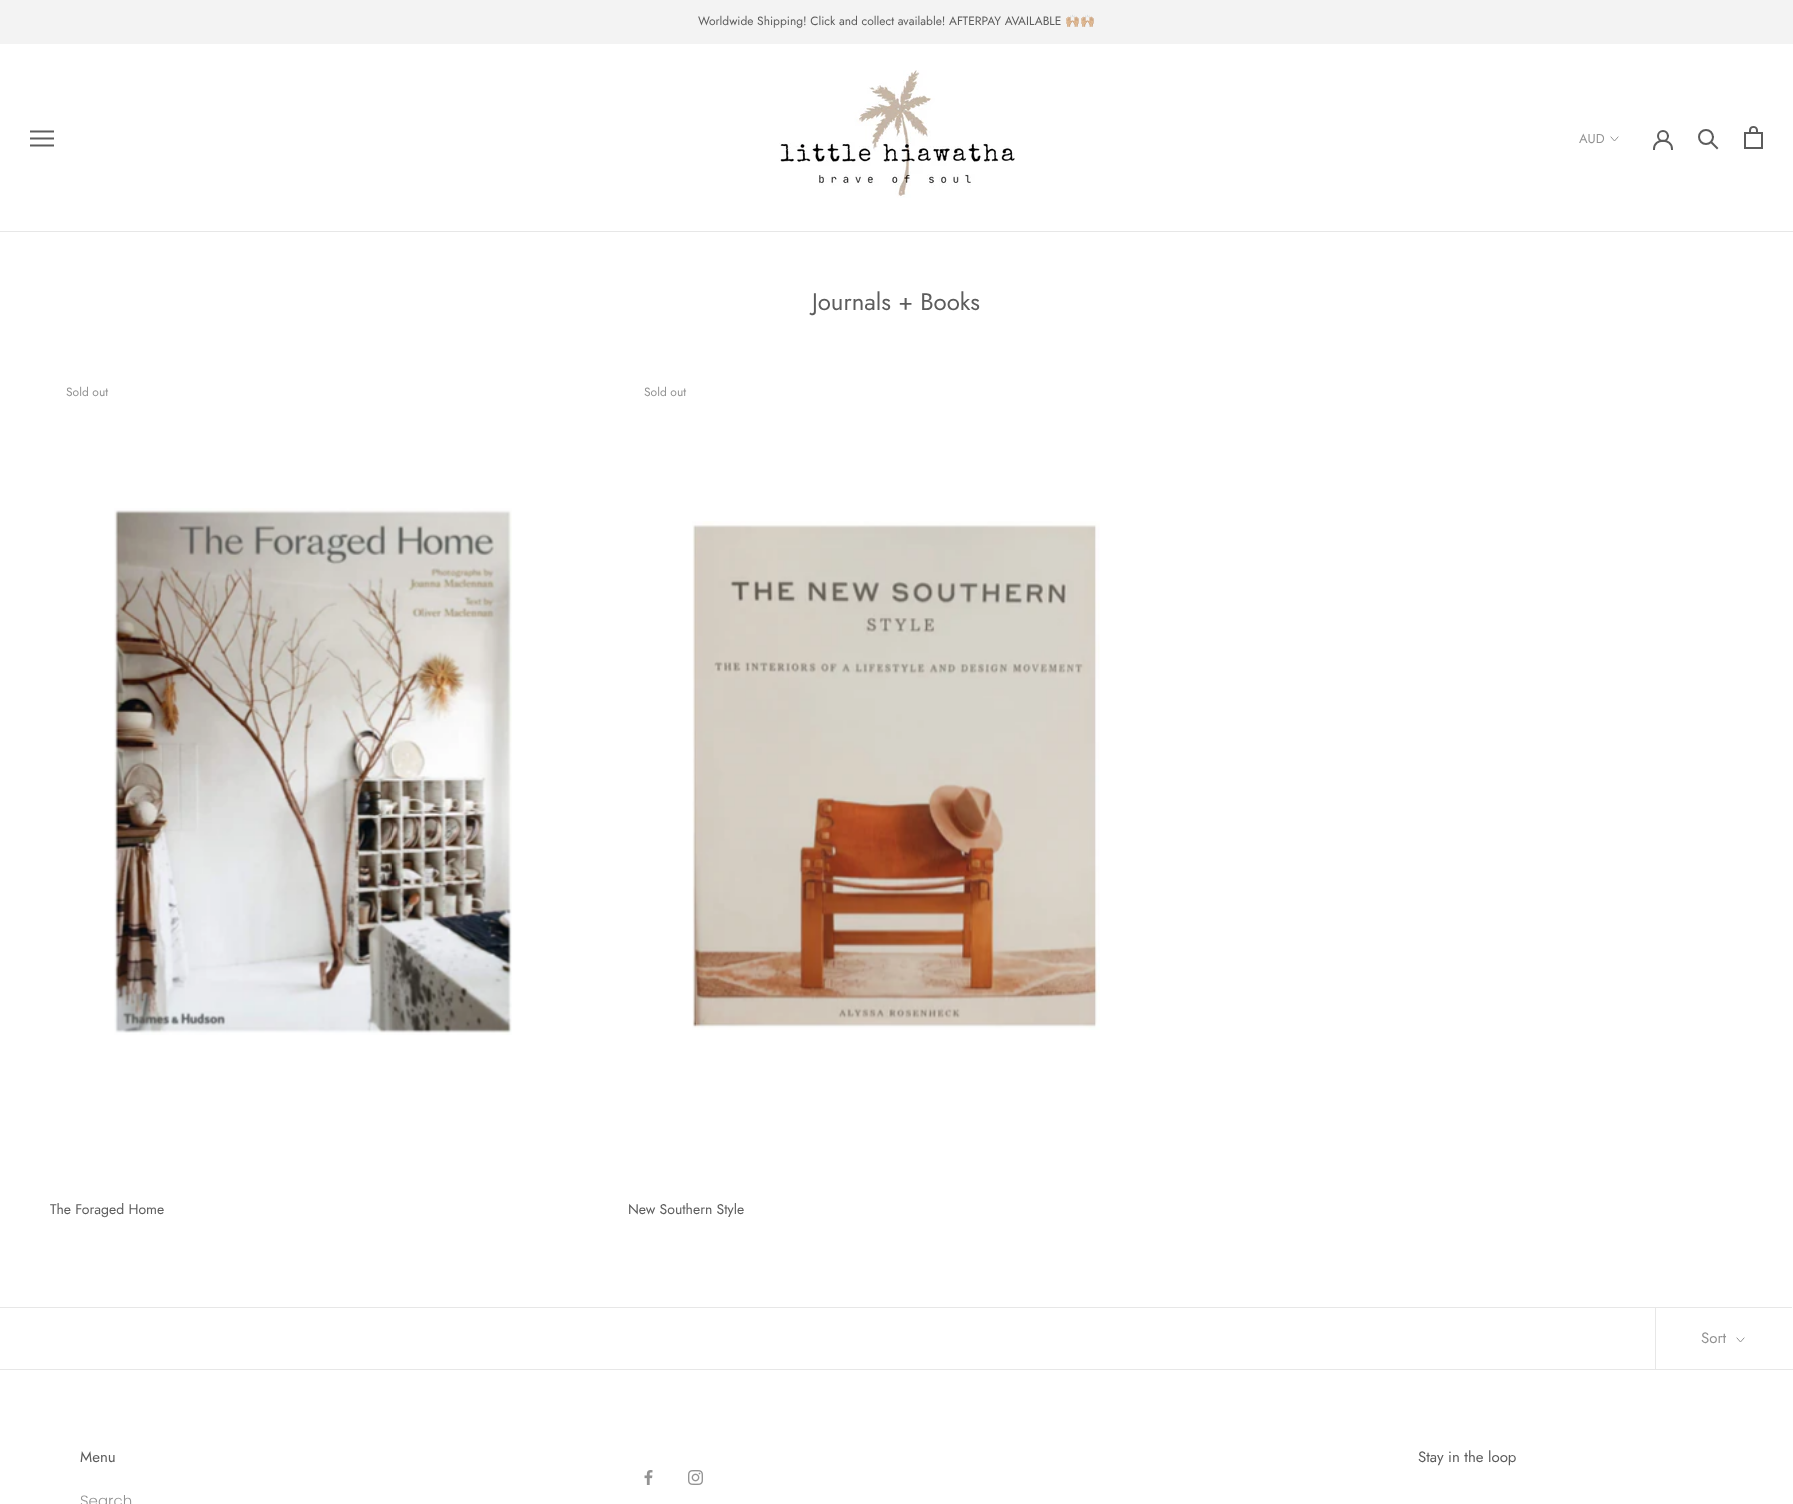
<!DOCTYPE html>
<meta charset="utf-8">
<style>body { margin: 0 } canvas { display: block }</style>
<canvas id="canvas" width="1793" height="1504"></canvas>
<script type="module">
  const canvas = document.getElementById("canvas");
  const ctx = canvas.getContext("2d");
  ctx.miterLimit = 4;
  ctx.fontKerning = "normal";
  async function loadImage(src) {
    const img = new Image();
    img.src = src;
    await img.decode();
    return img;
  }

  ctx.fillStyle = "#ffffff";
  ctx.fillRect(0, 0, 1793, 1504);
  ctx.fillStyle = "#f3f3f3";
  ctx.fillRect(0, 0, 1793, 44);
  ctx.font = "12px Jost";
  ctx.fillStyle = "#5c5c5c";
  ctx.fillText("Worldwide Shipping! Click and collect available! AFTERPAY AVAILABLE", 698, 25);
  ctx.font = "12px Noto Color Emoji";
  ctx.fillText("🙌🏼🙌🏼", 1065, 25);
  ctx.fillStyle = "#e7e7e7";
  ctx.fillRect(0, 231, 1793, 1);
  ctx.drawImage(await loadImage("img1.png"), 30, 130, 24, 17);
  ctx.drawImage(await loadImage("img2.png"), 779, 70, 236, 128);
  ctx.font = "13px Jost";
  ctx.fillStyle = "#939393";
  ctx.fillText("AUD", 1579, 143);
  ctx.beginPath();
  ctx.moveTo(1618, 137);
  ctx.lineTo(1614.5, 141);
  ctx.lineTo(1611, 137);
  ctx.strokeStyle = "#939393";
  ctx.lineCap = "square";
  ctx.stroke();
  ctx.beginPath();
  ctx.moveTo(1654, 149);
  ctx.bezierCurveTo(1654, 138, 1672, 138, 1672, 149);
  ctx.strokeStyle = "#5c5c5c";
  ctx.lineWidth = 2;
  ctx.stroke();
  ctx.beginPath();
  ctx.arc(1663, 136, 5, 0, Math.PI * 2);
  ctx.stroke();
  ctx.beginPath();
  ctx.moveTo(1717, 148);
  ctx.lineTo(1711.5, 142.5);
  ctx.stroke();
  ctx.beginPath();
  ctx.arc(1706, 137, 7, 0, Math.PI * 2);
  ctx.stroke();
  ctx.drawImage(await loadImage("img3.png"), 1744, 126, 19, 23);
  ctx.font = "24px Jost";
  ctx.fillStyle = "#5c5c5c";
  ctx.fillText("Journals + Books", 812, 310);
  ctx.font = "12px Jost";
  ctx.fillStyle = "#939393";
  ctx.fillText("Sold out", 66, 396);
  ctx.drawImage(await loadImage("img4.png"), 114, 508, 398, 527);
  ctx.font = "14px Jost";
  ctx.fillStyle = "#5c5c5c";
  ctx.fillText("The Foraged Home", 50, 1214);
  ctx.font = "12px Jost";
  ctx.fillStyle = "#939393";
  ctx.fillText("Sold out", 644, 396);
  ctx.drawImage(await loadImage("img5.png"), 692, 521, 408, 509);
  ctx.font = "14px Jost";
  ctx.fillStyle = "#5c5c5c";
  ctx.fillText("New Southern Style", 628, 1214);
  ctx.fillStyle = "#e7e7e7";
  ctx.beginPath();
  ctx.moveTo(-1, 1307);
  ctx.lineTo(-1, 1368);
  ctx.lineTo(0, 1368);
  ctx.lineTo(0, 1308);
  ctx.lineTo(1792, 1308);
  ctx.lineTo(1792, 1307);
  ctx.closePath();
  ctx.fill();
  ctx.fillRect(1655, 1308, 1, 61);
  ctx.font = "15px Jost";
  ctx.fillStyle = "#939393";
  ctx.fillText("Sort", 1701, 1343);
  ctx.beginPath();
  ctx.moveTo(1744, 1338);
  ctx.lineTo(1740.5, 1342);
  ctx.lineTo(1737, 1338);
  ctx.strokeStyle = "#939393";
  ctx.lineWidth = 1;
  ctx.stroke();
  ctx.fillStyle = "#e7e7e7";
  ctx.fillRect(0, 1369, 1793, 1);
  ctx.fillStyle = "#5c5c5c";
  ctx.fillText("Menu", 80, 1462);
  ctx.font = "300 15px Poppins";
  ctx.fillStyle = "#939393";
  ctx.fillText("Search", 80, 1506);
  ctx.drawImage(await loadImage("img6.png"), 644, 1470, 9, 15);
  ctx.drawImage(await loadImage("img7.png"), 688, 1470, 15, 15);
  ctx.font = "15px Jost";
  ctx.fillStyle = "#5c5c5c";
  ctx.fillText("Stay in the loop", 1418, 1462);
</script>
